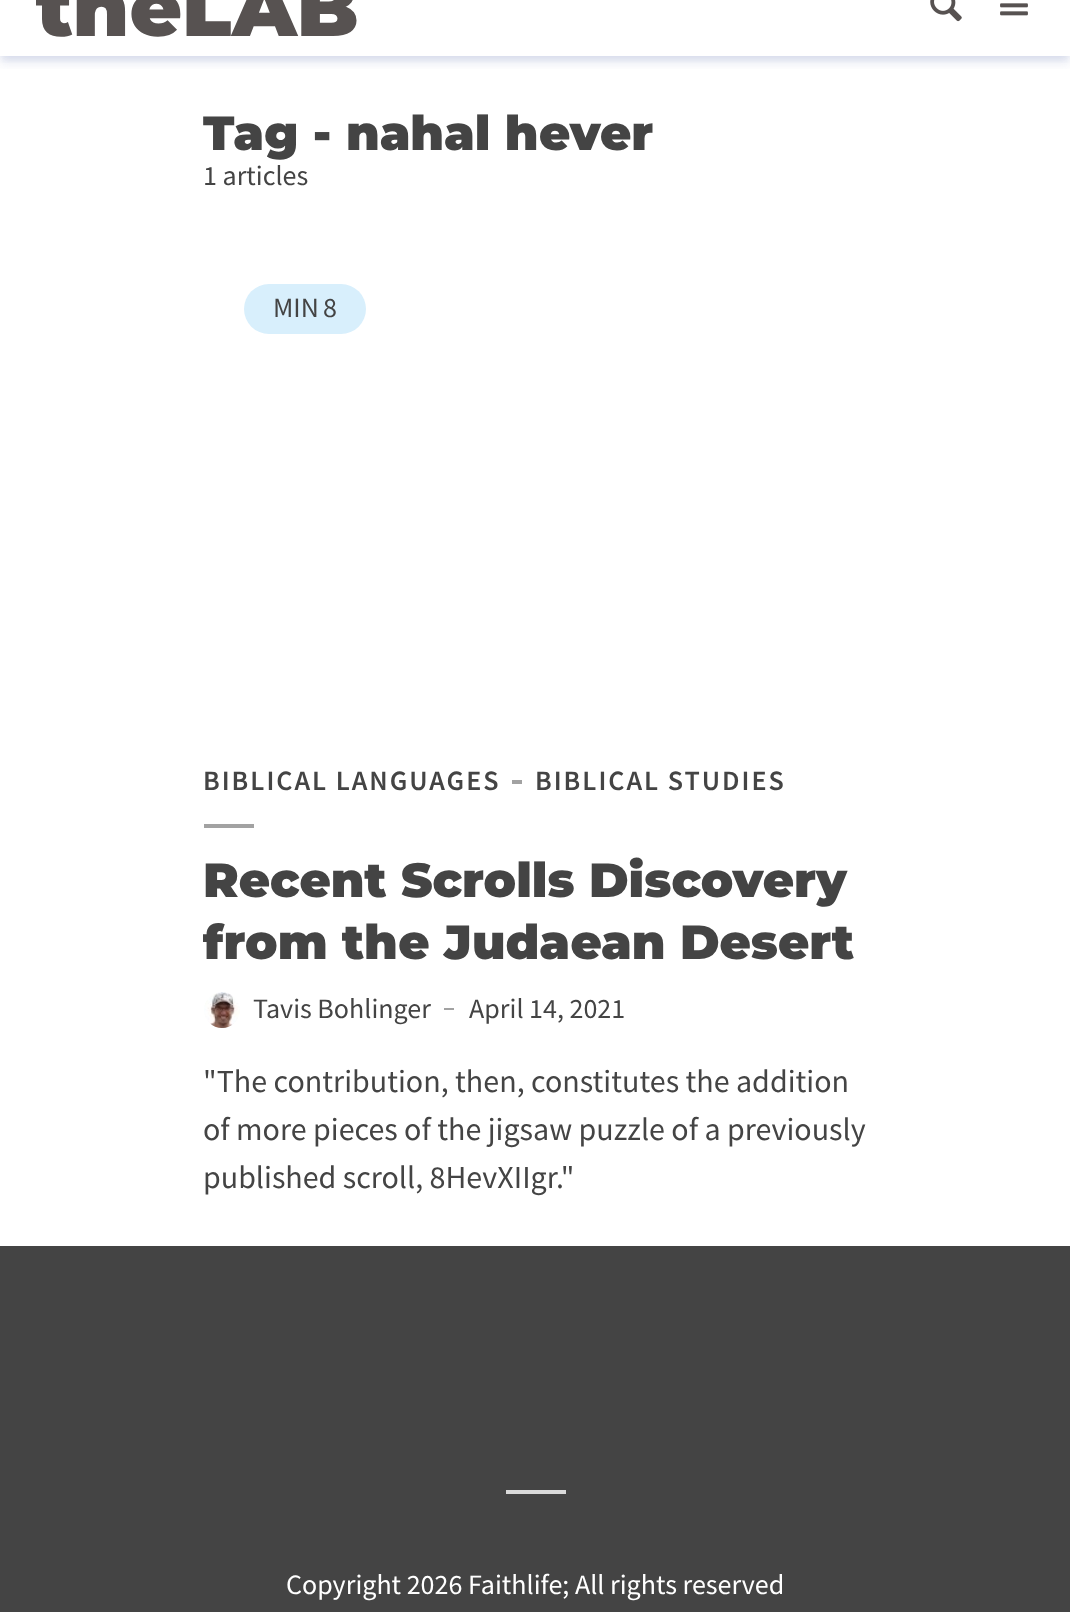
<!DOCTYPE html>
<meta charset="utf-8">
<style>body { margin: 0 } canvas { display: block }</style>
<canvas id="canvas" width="1070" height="1612"></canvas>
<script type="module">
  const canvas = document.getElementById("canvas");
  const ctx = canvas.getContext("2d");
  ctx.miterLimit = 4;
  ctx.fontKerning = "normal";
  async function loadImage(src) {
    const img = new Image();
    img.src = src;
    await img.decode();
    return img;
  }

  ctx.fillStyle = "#ffffff";
  ctx.fillRect(0, 0, 1070, 1612);
  ctx.save();
  ctx.beginPath();
  ctx.rect(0, 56, 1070, 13);
  ctx.clip();
  ctx.fillStyle = "rgba(110, 131, 183, 0.14)";
  ctx.filter = "blur(5px)";
  ctx.beginPath();
  ctx.rect(0, -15, 1070, 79);
  ctx.fill();
  ctx.filter = "none";
  ctx.restore();
  ctx.save();
  ctx.beginPath();
  ctx.rect(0, 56, 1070, 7);
  ctx.clip();
  ctx.fillStyle = "rgba(110, 131, 183, 0.2)";
  ctx.filter = "blur(4px)";
  ctx.beginPath();
  ctx.rect(2, -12, 1066, 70);
  ctx.fill();
  ctx.filter = "none";
  ctx.restore();
  ctx.font = "900 80px Montserrat";
  ctx.fillStyle = "#575251";
  ctx.fillText("theLAB", 36, 36);
  ctx.drawImage(await loadImage("img1.png"), 930, 0, 32, 22);
  ctx.drawImage(await loadImage("img2.png"), 1000, 3, 28, 13);
  ctx.font = "900 48px Montserrat";
  ctx.fillStyle = "#444444";
  ctx.fillText("Tag - nahal hever", 203, 150);
  ctx.font = "28px Source Sans Pro";
  ctx.fillText("1 articles", 203, 185);
  ctx.fillStyle = "#d8effc";
  ctx.beginPath();
  ctx.roundRect(244, 284, 122, 50, 25);
  ctx.fill();
  ctx.fillStyle = "#444444";
  ctx.fillText("MIN", 273, 317);
  ctx.fillText("8", 323, 317);
  ctx.letterSpacing = "2px";
  ctx.font = "600 28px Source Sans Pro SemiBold";
  ctx.fillText("BIBLICAL LANGUAGES", 203, 790);
  ctx.fillStyle = "#a2a2a2";
  ctx.fillRect(512, 780, 10, 4);
  ctx.fillStyle = "#444444";
  ctx.fillText("BIBLICAL STUDIES", 535, 790);
  ctx.fillStyle = "#a2a2a2";
  ctx.fillRect(204, 824, 50, 4);
  ctx.letterSpacing = "0px";
  ctx.font = "900 48px Montserrat";
  ctx.fillStyle = "#444444";
  ctx.fillText("Recent Scrolls Discovery", 203, 897);
  ctx.fillText("from the Judaean Desert", 203, 959);
  ctx.drawImage(await loadImage("img3.png"), 204, 992, 36, 36);
  ctx.font = "28px Source Sans Pro";
  ctx.fillText("Tavis Bohlinger", 253, 1018);
  ctx.fillStyle = "#a2a2a2";
  ctx.fillRect(444, 1008, 10, 2);
  ctx.fillStyle = "#444444";
  ctx.fillText("April 14, 2021", 469, 1018);
  ctx.font = "32px Source Sans Pro";
  ctx.fillText("\"The contribution, then, constitutes the addition", 203, 1092);
  ctx.fillText("of more pieces of the jigsaw puzzle of a previously", 203, 1140);
  ctx.fillText("published scroll, 8HevXIIgr.\"", 203, 1188);
  ctx.fillRect(0, 1246, 1070, 366);
  ctx.fillStyle = "#dadada";
  ctx.fillRect(506, 1490, 60, 4);
  ctx.font = "28px Source Sans Pro";
  ctx.fillStyle = "#ffffff";
  ctx.fillText("Copyright 2026 Faithlife; All rights reserved", 286, 1594);
</script>
